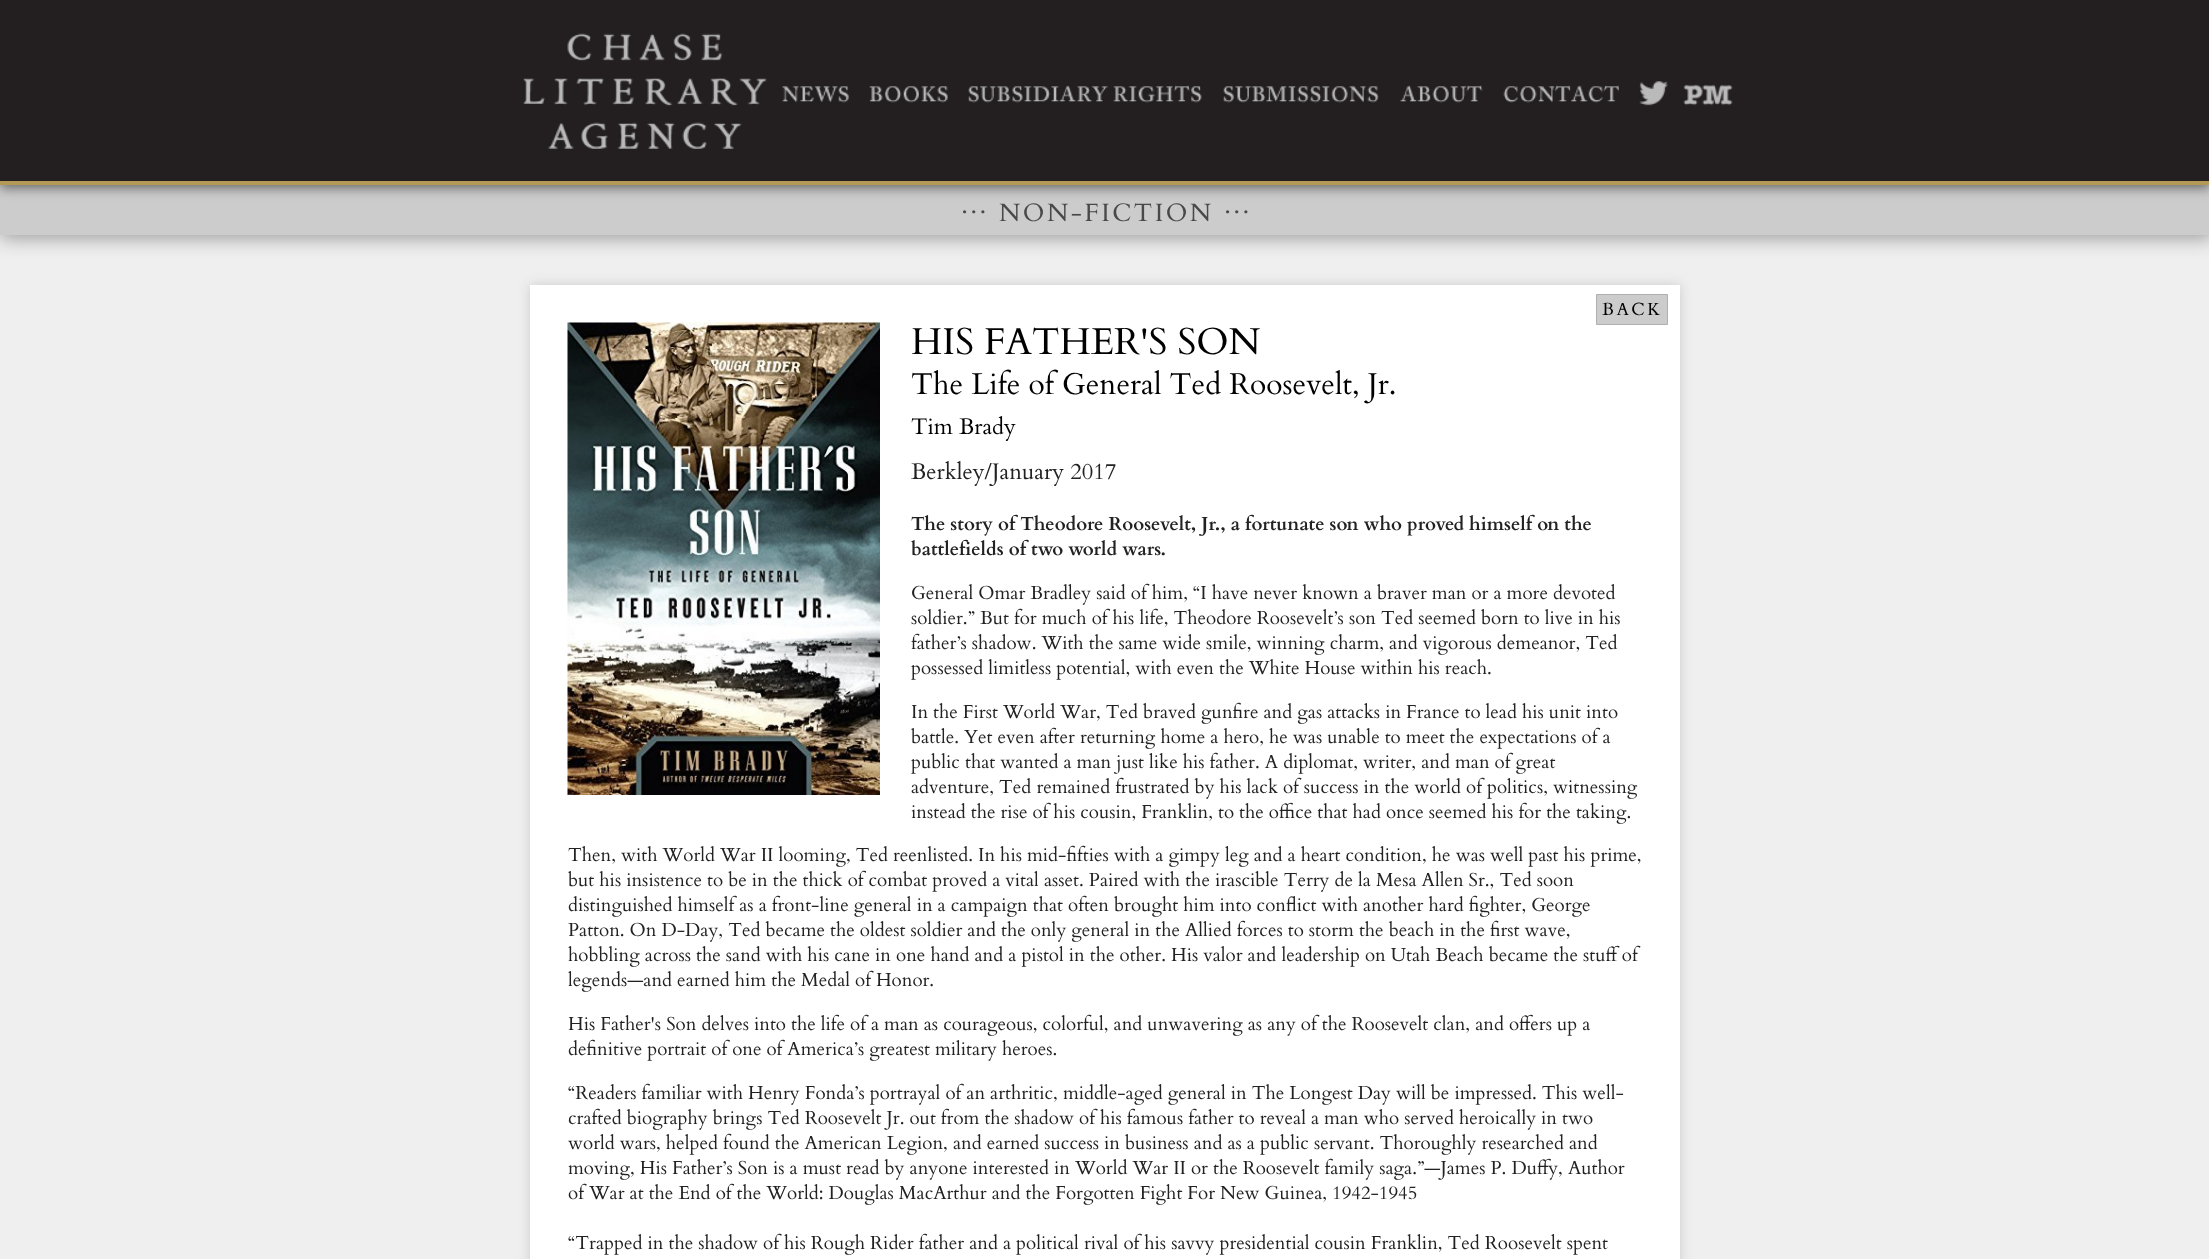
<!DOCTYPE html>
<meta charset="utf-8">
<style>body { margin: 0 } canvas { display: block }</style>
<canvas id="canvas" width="2209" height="1259"></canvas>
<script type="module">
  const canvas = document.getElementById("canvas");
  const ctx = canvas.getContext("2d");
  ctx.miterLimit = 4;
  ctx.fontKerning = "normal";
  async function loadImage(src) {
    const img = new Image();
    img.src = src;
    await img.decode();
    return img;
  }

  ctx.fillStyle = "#efefef";
  ctx.fillRect(0, 0, 2209, 1259);
  ctx.fillStyle = "#999999";
  ctx.filter = "blur(9.5px)";
  ctx.beginPath();
  ctx.rect(0, 188, 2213, 50);
  ctx.fill();
  ctx.filter = "none";
  ctx.fillStyle = "#cccccc";
  ctx.fillRect(0, 185, 2209, 50);
  ctx.fillStyle = "#666666";
  ctx.filter = "blur(6px)";
  ctx.beginPath();
  ctx.rect(0, 3, 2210, 185);
  ctx.fill();
  ctx.filter = "none";
  ctx.fillStyle = "#231f20";
  ctx.fillRect(0, 0, 2209, 181);
  ctx.fillStyle = "#b39953";
  ctx.fillRect(0, 181, 2209, 4);
  ctx.drawImage(await loadImage("img1.png"), 523, 33, 244, 116);
  ctx.drawImage(await loadImage("img2.png"), 782, 86, 67, 17);
  ctx.drawImage(await loadImage("img3.png"), 869, 86, 79, 17);
  ctx.drawImage(await loadImage("img4.png"), 968, 85, 234, 18);
  ctx.drawImage(await loadImage("img5.png"), 1223, 86, 156, 17);
  ctx.drawImage(await loadImage("img6.png"), 1400, 85, 83, 18);
  ctx.drawImage(await loadImage("img7.png"), 1503, 85, 116, 18);
  ctx.drawImage(await loadImage("img8.png"), 1639, 81, 29, 25);
  ctx.drawImage(await loadImage("img9.png"), 1683, 84, 50, 22);
  ctx.letterSpacing = "2.5px";
  ctx.font = "25px Cardo";
  ctx.fillStyle = "#494949";
  ctx.fillText("…", 960, 213);
  ctx.fillText("NON-FICTION", 999, 221);
  ctx.fillText("…", 1223, 213);
  ctx.fillStyle = "#cccccc";
  ctx.filter = "blur(6px)";
  ctx.beginPath();
  ctx.rect(530, 285, 1150, 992);
  ctx.fill();
  ctx.filter = "none";
  ctx.fillStyle = "#ffffff";
  ctx.fillRect(530, 285, 1150, 974);
  ctx.fillStyle = "#cccccc";
  ctx.beginPath();
  ctx.rect(1596.5, 294.5, 71, 30);
  ctx.fill();
  ctx.strokeStyle = "#b0afaf";
  ctx.stroke();
  ctx.font = "17.5px Cardo";
  ctx.fillStyle = "#000000";
  ctx.fillText("BACK", 1602, 315);
  ctx.drawImage(await loadImage("img10.png"), 567, 322, 313, 473);
  ctx.letterSpacing = "0px";
  ctx.font = "37.5px Cardo";
  ctx.fillText("HIS FATHER'S SON", 911, 354);
  ctx.font = "30px Cardo";
  ctx.fillText("The Life of General Ted Roosevelt, Jr.", 911, 394);
  ctx.font = "22.5px Cardo";
  ctx.fillText("Tim Brady", 911, 434);
  ctx.fillStyle = "#222222";
  ctx.fillText("Berkley/January 2017", 911, 479);
  ctx.font = "bold 18.75px Cardo";
  ctx.fillText("The story of Theodore Roosevelt, Jr., a fortunate son who proved himself on the", 911, 530);
  ctx.fillText("battlefields of two world wars.", 911, 555);
  ctx.font = "18.75px Cardo";
  ctx.fillText("General Omar Bradley said of him, “I have never known a braver man or a more devoted", 911, 599);
  ctx.fillText("soldier.” But for much of his life, Theodore Roosevelt’s son Ted seemed born to live in his", 911, 624);
  ctx.fillText("father’s shadow. With the same wide smile, winning charm, and vigorous demeanor, Ted", 911, 649);
  ctx.fillText("possessed limitless potential, with even the White House within his reach.", 911, 674);
  ctx.fillText("In the First World War, Ted braved gunfire and gas attacks in France to lead his unit into", 911, 718);
  ctx.fillText("battle. Yet even after returning home a hero, he was unable to meet the expectations of a", 911, 743);
  ctx.fillText("public that wanted a man just like his father. A diplomat, writer, and man of great", 911, 768);
  ctx.fillText("adventure, Ted remained frustrated by his lack of success in the world of politics, witnessing", 911, 793);
  ctx.fillText("instead the rise of his cousin, Franklin, to the office that had once seemed his for the taking.", 911, 818);
  ctx.fillText("Then, with World War II looming, Ted reenlisted. In his mid-fifties with a gimpy leg and a heart condition, he was well past his prime,", 568, 861);
  ctx.fillText("but his insistence to be in the thick of combat proved a vital asset. Paired with the irascible Terry de la Mesa Allen Sr., Ted soon", 568, 886);
  ctx.fillText("distinguished himself as a front-line general in a campaign that often brought him into conflict with another hard fighter, George", 568, 911);
  ctx.fillText("Patton. On D-Day, Ted became the oldest soldier and the only general in the Allied forces to storm the beach in the first wave,", 568, 936);
  ctx.fillText("hobbling across the sand with his cane in one hand and a pistol in the other. His valor and leadership on Utah Beach became the stuff of", 568, 961);
  ctx.fillText("legends—and earned him the Medal of Honor.", 568, 986);
  ctx.fillText("His Father's Son delves into the life of a man as courageous, colorful, and unwavering as any of the Roosevelt clan, and offers up a", 568, 1030);
  ctx.fillText("definitive portrait of one of America’s greatest military heroes.", 568, 1055);
  ctx.fillText("“Readers familiar with Henry Fonda’s portrayal of an arthritic, middle-aged general in The Longest Day will be impressed. This well-", 568, 1099);
  ctx.fillText("crafted biography brings Ted Roosevelt Jr. out from the shadow of his famous father to reveal a man who served heroically in two", 568, 1124);
  ctx.fillText("world wars, helped found the American Legion, and earned success in business and as a public servant. Thoroughly researched and", 568, 1149);
  ctx.fillText("moving, His Father’s Son is a must read by anyone interested in World War II or the Roosevelt family saga.”—James P. Duffy, Author", 568, 1174);
  ctx.fillText("of War at the End of the World: Douglas MacArthur and the Forgotten Fight For New Guinea, 1942-1945", 568, 1199);
  ctx.fillText("“Trapped in the shadow of his Rough Rider father and a political rival of his savvy presidential cousin Franklin, Ted Roosevelt spent", 568, 1249);
</script>
